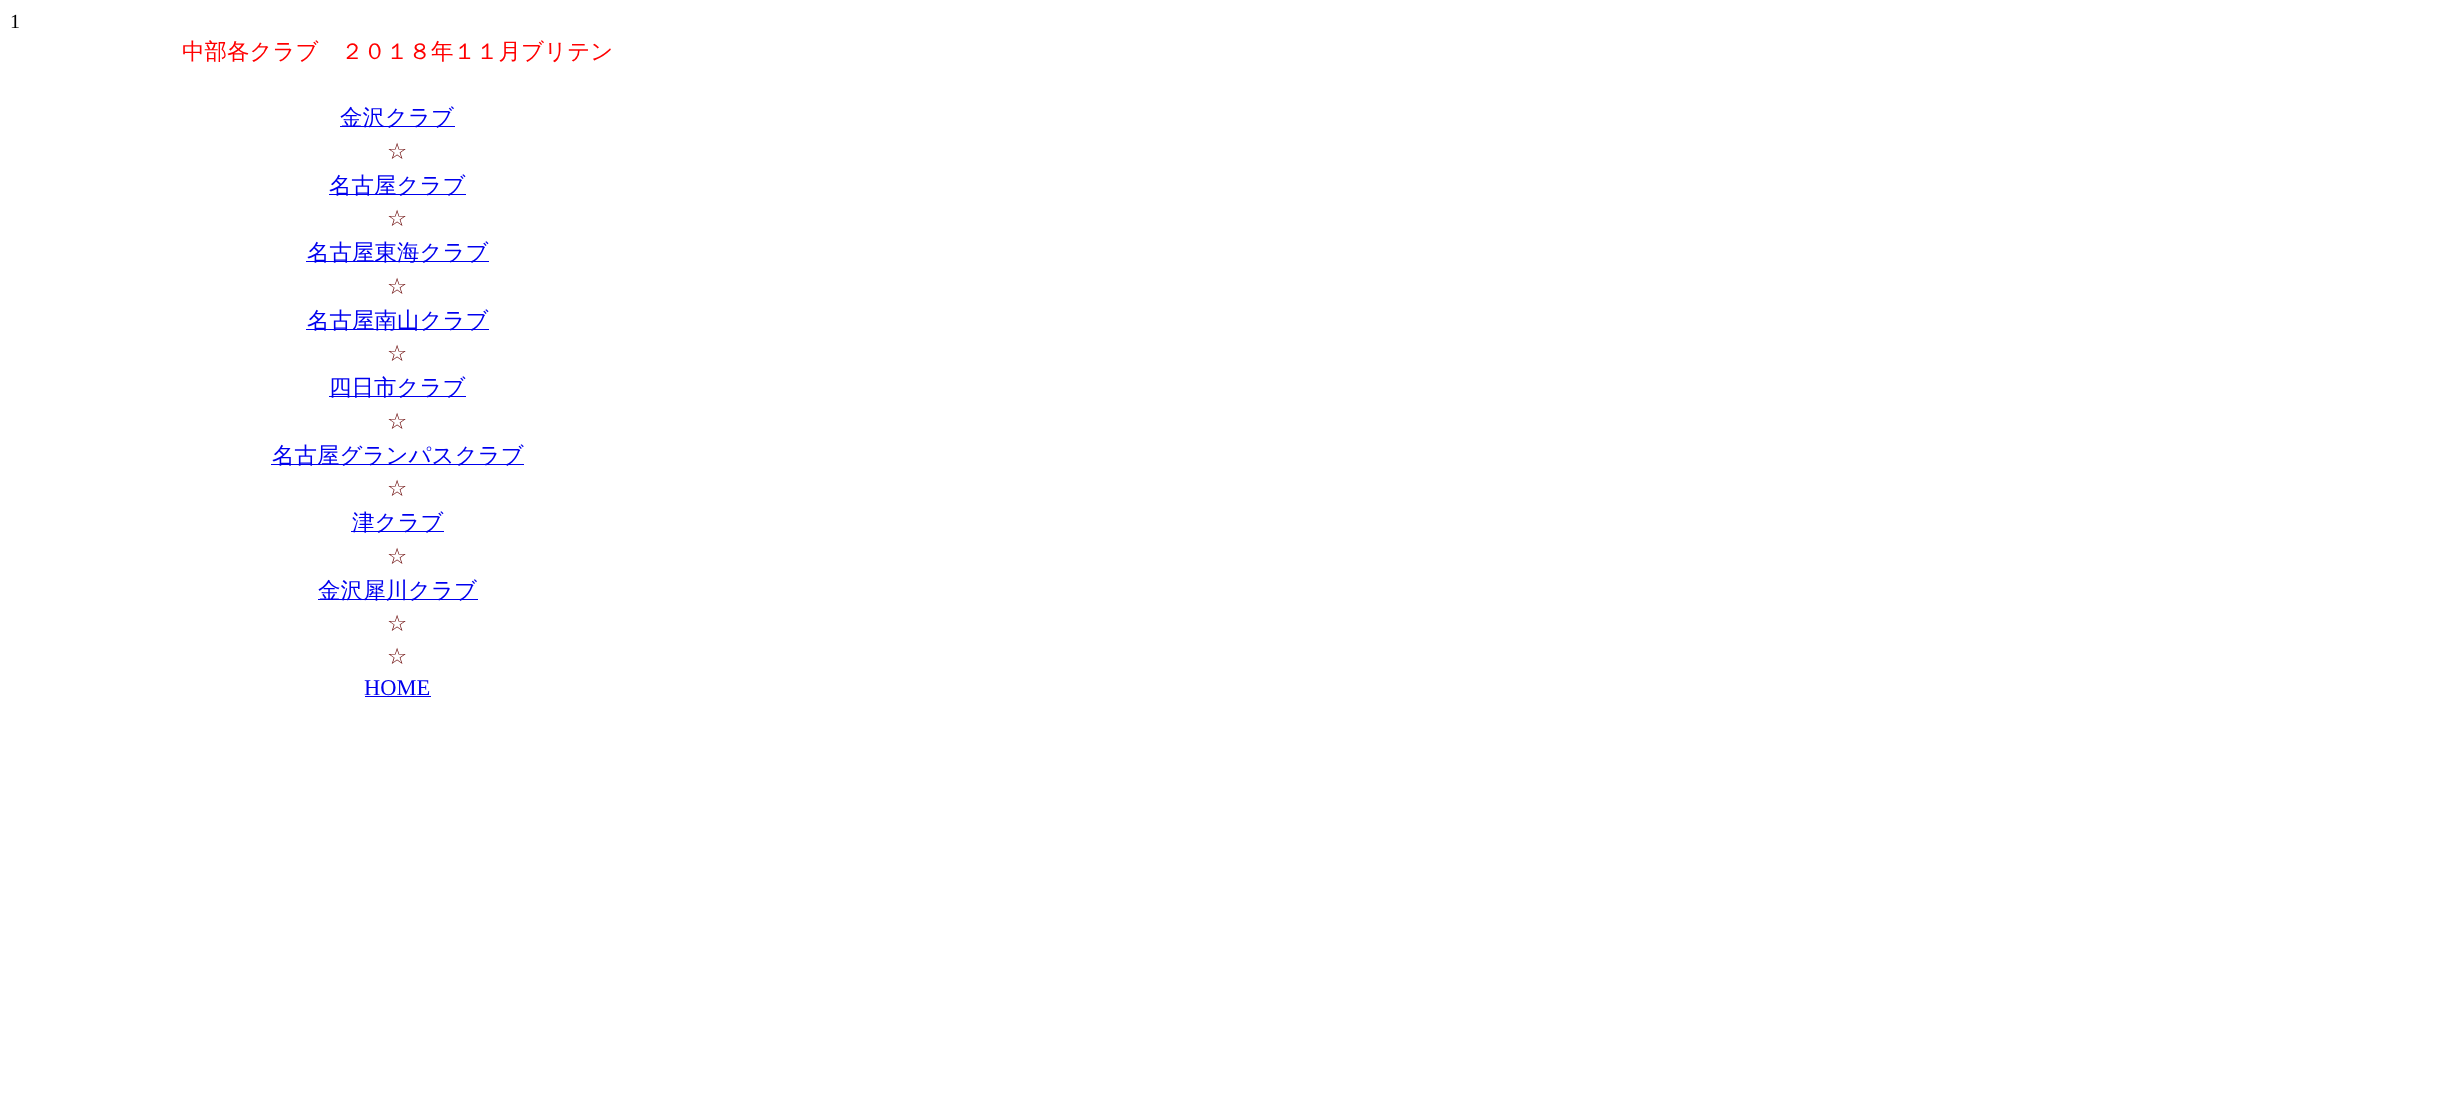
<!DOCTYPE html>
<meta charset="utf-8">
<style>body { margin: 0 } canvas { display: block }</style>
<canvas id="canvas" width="2453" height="1116"></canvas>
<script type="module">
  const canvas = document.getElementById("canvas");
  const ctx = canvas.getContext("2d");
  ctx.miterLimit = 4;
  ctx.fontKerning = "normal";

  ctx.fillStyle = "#ffffff";
  ctx.fillRect(0, 0, 2453, 1116);
  ctx.font = "20px Liberation Serif";
  ctx.fillStyle = "#000000";
  ctx.fillText("1", 10, 28);
  ctx.font = "500 22.5px WenQuanYi Zen Hei";
  ctx.fillStyle = "#ff0000";
  ctx.fillText("中部各クラブ　２０１８年１１月ブリテン", 182, 59);
  ctx.fillStyle = "#0000ee";
  ctx.fillRect(340, 126, 115, 1);
  ctx.fillText("金沢クラブ", 340, 125);
  ctx.font = "22.5px DejaVu Sans";
  ctx.fillStyle = "#660000";
  ctx.fillText("☆", 387, 159);
  ctx.fillStyle = "#0000ee";
  ctx.fillRect(329, 194, 137, 1);
  ctx.font = "500 22.5px WenQuanYi Zen Hei";
  ctx.fillText("名古屋クラブ", 329, 193);
  ctx.font = "22.5px DejaVu Sans";
  ctx.fillStyle = "#660000";
  ctx.fillText("☆", 387, 226);
  ctx.fillStyle = "#0000ee";
  ctx.fillRect(306, 261, 183, 1);
  ctx.font = "500 22.5px WenQuanYi Zen Hei";
  ctx.fillText("名古屋東海クラブ", 307, 260);
  ctx.font = "22.5px DejaVu Sans";
  ctx.fillStyle = "#660000";
  ctx.fillText("☆", 387, 294);
  ctx.fillStyle = "#0000ee";
  ctx.fillRect(306, 329, 183, 1);
  ctx.font = "500 22.5px WenQuanYi Zen Hei";
  ctx.fillText("名古屋南山クラブ", 307, 328);
  ctx.font = "22.5px DejaVu Sans";
  ctx.fillStyle = "#660000";
  ctx.fillText("☆", 387, 361);
  ctx.fillStyle = "#0000ee";
  ctx.fillRect(329, 396, 137, 1);
  ctx.font = "500 22.5px WenQuanYi Zen Hei";
  ctx.fillText("四日市クラブ", 329, 395);
  ctx.font = "22.5px DejaVu Sans";
  ctx.fillStyle = "#660000";
  ctx.fillText("☆", 387, 429);
  ctx.fillStyle = "#0000ee";
  ctx.fillRect(271, 464, 253, 1);
  ctx.font = "500 22.5px WenQuanYi Zen Hei";
  ctx.fillText("名古屋グランパスクラブ", 272, 463);
  ctx.font = "22.5px DejaVu Sans";
  ctx.fillStyle = "#660000";
  ctx.fillText("☆", 387, 496);
  ctx.fillStyle = "#0000ee";
  ctx.fillRect(351, 531, 93, 1);
  ctx.font = "500 22.5px WenQuanYi Zen Hei";
  ctx.fillText("津クラブ", 352, 530);
  ctx.font = "22.5px DejaVu Sans";
  ctx.fillStyle = "#660000";
  ctx.fillText("☆", 387, 564);
  ctx.fillStyle = "#0000ee";
  ctx.fillRect(318, 599, 160, 1);
  ctx.font = "500 22.5px WenQuanYi Zen Hei";
  ctx.fillText("金沢犀川クラブ", 318, 598);
  ctx.font = "22.5px DejaVu Sans";
  ctx.fillStyle = "#660000";
  ctx.fillText("☆", 387, 631);
  ctx.fillText("☆", 387, 664);
  ctx.font = "22.5px Liberation Serif";
  ctx.fillStyle = "#0000ee";
  ctx.fillText("HOME", 364, 695);
  ctx.fillRect(365, 696, 66, 1);
</script>
